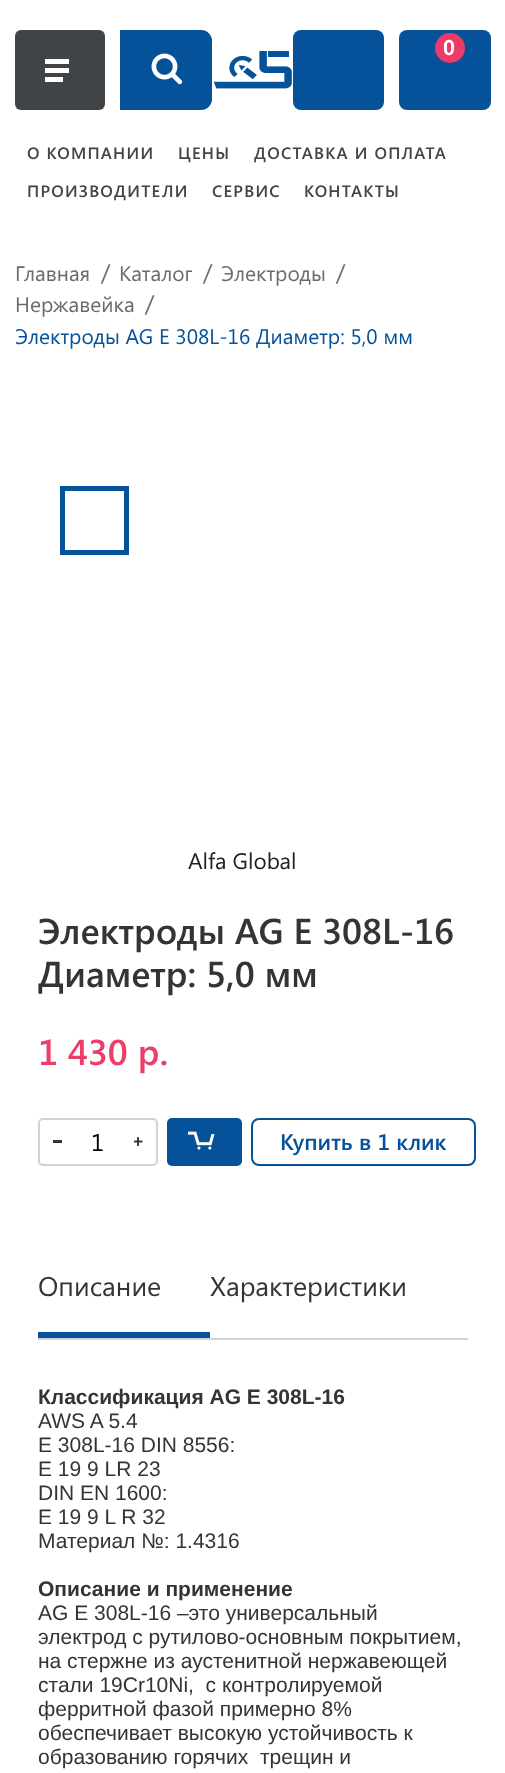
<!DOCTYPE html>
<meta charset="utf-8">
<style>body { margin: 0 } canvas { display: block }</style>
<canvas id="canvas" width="505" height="1773"></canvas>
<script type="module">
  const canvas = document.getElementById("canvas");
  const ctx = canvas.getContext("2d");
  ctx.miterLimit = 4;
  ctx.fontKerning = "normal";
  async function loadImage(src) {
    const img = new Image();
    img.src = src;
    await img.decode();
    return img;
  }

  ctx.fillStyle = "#ffffff";
  ctx.fillRect(0, 0, 505, 1773);
  ctx.fillStyle = "#414447";
  ctx.beginPath();
  ctx.roundRect(15, 30, 90, 80, 6);
  ctx.fill();
  ctx.fillStyle = "#ffffff";
  ctx.fillRect(45, 68, 24, 5);
  ctx.fillRect(45, 59, 24, 5);
  ctx.fillRect(45, 77, 18, 5);
  ctx.beginPath();
  ctx.roundRect(121, 31, 90, 78, 10);
  ctx.strokeStyle = "#d2d2d4";
  ctx.lineWidth = 2;
  ctx.stroke();
  ctx.fillStyle = "#05529a";
  ctx.beginPath();
  ctx.roundRect(120, 30, 92, 80, [0, 11, 11, 0]);
  ctx.fill();
  ctx.drawImage(await loadImage("img1.png"), 151, 53, 32, 32);
  ctx.beginPath();
  ctx.roundRect(293, 30, 91, 80, 8);
  ctx.fill();
  ctx.beginPath();
  ctx.roundRect(399, 30, 92, 80, 8);
  ctx.fill();
  ctx.fillStyle = "#ee3a67";
  ctx.beginPath();
  ctx.arc(450, 48, 15, 0, Math.PI * 2);
  ctx.fill();
  ctx.font = "bold 21px Roboto";
  ctx.fillStyle = "#ffffff";
  ctx.fillText("0", 443, 55);
  ctx.drawImage(await loadImage("img2.png"), 213, 51, 79, 38);
  ctx.letterSpacing = "1.25px";
  ctx.font = "600 16.5px Segoe UI";
  ctx.fillStyle = "#414447";
  ctx.fillText("О КОМПАНИИ", 27, 159);
  ctx.fillText("ЦЕНЫ", 178, 159);
  ctx.fillText("ДОСТАВКА И ОПЛАТА", 254, 159);
  ctx.fillText("ПРОИЗВОДИТЕЛИ", 27, 197);
  ctx.fillText("СЕРВИС", 212, 197);
  ctx.fillText("КОНТАКТЫ", 304, 197);
  ctx.letterSpacing = "0px";
  ctx.font = "21px Segoe UI";
  ctx.fillStyle = "#6b6c6a";
  ctx.fillText("Главная", 15, 281);
  ctx.font = "24px Segoe UI";
  ctx.fillText("/", 101, 281);
  ctx.font = "21px Segoe UI";
  ctx.fillText("Каталог", 119, 281);
  ctx.font = "24px Segoe UI";
  ctx.fillText("/", 203, 281);
  ctx.font = "21px Segoe UI";
  ctx.fillText("Электроды", 221, 281);
  ctx.font = "24px Segoe UI";
  ctx.fillText("/", 336, 281);
  ctx.font = "21px Segoe UI";
  ctx.fillText("Нержавейка", 15, 312);
  ctx.font = "24px Segoe UI";
  ctx.fillText("/", 145, 312);
  ctx.font = "21px Segoe UI";
  ctx.fillStyle = "#05529a";
  ctx.fillText("Электроды AG E 308L-16 Диаметр: 5,0 мм", 15, 344);
  ctx.strokeStyle = "#05529a";
  ctx.lineWidth = 5;
  ctx.strokeRect(62.5, 488.5, 64, 64);
  ctx.font = "22.5px Segoe UI";
  ctx.fillStyle = "#231f20";
  ctx.fillText("Alfa Global", 188, 869);
  ctx.font = "600 36px Segoe UI";
  ctx.fillStyle = "#323438";
  ctx.fillText("Электроды AG E 308L-16", 38, 944);
  ctx.fillText("Диаметр: 5,0 мм", 38, 987);
  ctx.fillStyle = "#ec3e69";
  ctx.fillText("1 430 р.", 38, 1065);
  ctx.beginPath();
  ctx.roundRect(39, 1119, 118, 46, 4);
  ctx.strokeStyle = "#d2d2d4";
  ctx.lineWidth = 2;
  ctx.stroke();
  ctx.fillStyle = "#323438";
  ctx.fillRect(53, 1140, 9, 3);
  ctx.font = "24px Segoe UI";
  ctx.fillStyle = "#000000";
  ctx.fillText("1", 91, 1151);
  ctx.drawImage(await loadImage("img3.png"), 134, 1137, 9, 9);
  ctx.fillStyle = "#05529a";
  ctx.beginPath();
  ctx.roundRect(167, 1118, 75, 48, 5);
  ctx.fill();
  ctx.drawImage(await loadImage("img4.png"), 188, 1131, 27, 19);
  ctx.beginPath();
  ctx.roundRect(252, 1119, 223, 46, 7);
  ctx.strokeStyle = "#05529a";
  ctx.stroke();
  ctx.font = "600 22.5px Segoe UI";
  ctx.fillText("Купить в 1 клик", 280, 1150);
  ctx.fillStyle = "#d2d2d4";
  ctx.fillRect(38, 1338, 430, 2);
  ctx.fillStyle = "#05529a";
  ctx.fillRect(38, 1332, 172, 6);
  ctx.font = "27px Segoe UI";
  ctx.fillStyle = "#323438";
  ctx.fillText("Описание", 38, 1296);
  ctx.fillText("Характеристики", 210, 1296);
  ctx.font = "bold 21px Liberation Sans";
  ctx.fillText("Классификация AG E 308L-16", 38, 1404);
  ctx.font = "21px Liberation Sans";
  ctx.fillText("AWS A 5.4", 38, 1428);
  ctx.fillText("E 308L-16 DIN 8556:", 38, 1452);
  ctx.fillText("E 19 9 LR 23", 38, 1476);
  ctx.fillText("DIN EN 1600:", 38, 1500);
  ctx.fillText("E 19 9 L R 32", 38, 1524);
  ctx.fillText("Материал №: 1.4316", 38, 1548);
  ctx.font = "bold 21px Liberation Sans";
  ctx.fillText("Описание и применение", 38, 1596);
  ctx.font = "21px Liberation Sans";
  ctx.fillText("AG E 308L-16 –это универсальный", 38, 1620);
  ctx.fillText("электрод с рутилово-основным покрытием,", 38, 1644);
  ctx.fillText("на стержне из аустенитной нержавеющей", 38, 1668);
  ctx.fillText("стали 19Cr10Ni,  с контролируемой", 38, 1692);
  ctx.fillText("ферритной фазой примерно 8%", 38, 1716);
  ctx.fillText("обеспечивает высокую устойчивость к", 38, 1740);
  ctx.fillText("образованию горячих  трещин и", 38, 1764);
</script>
